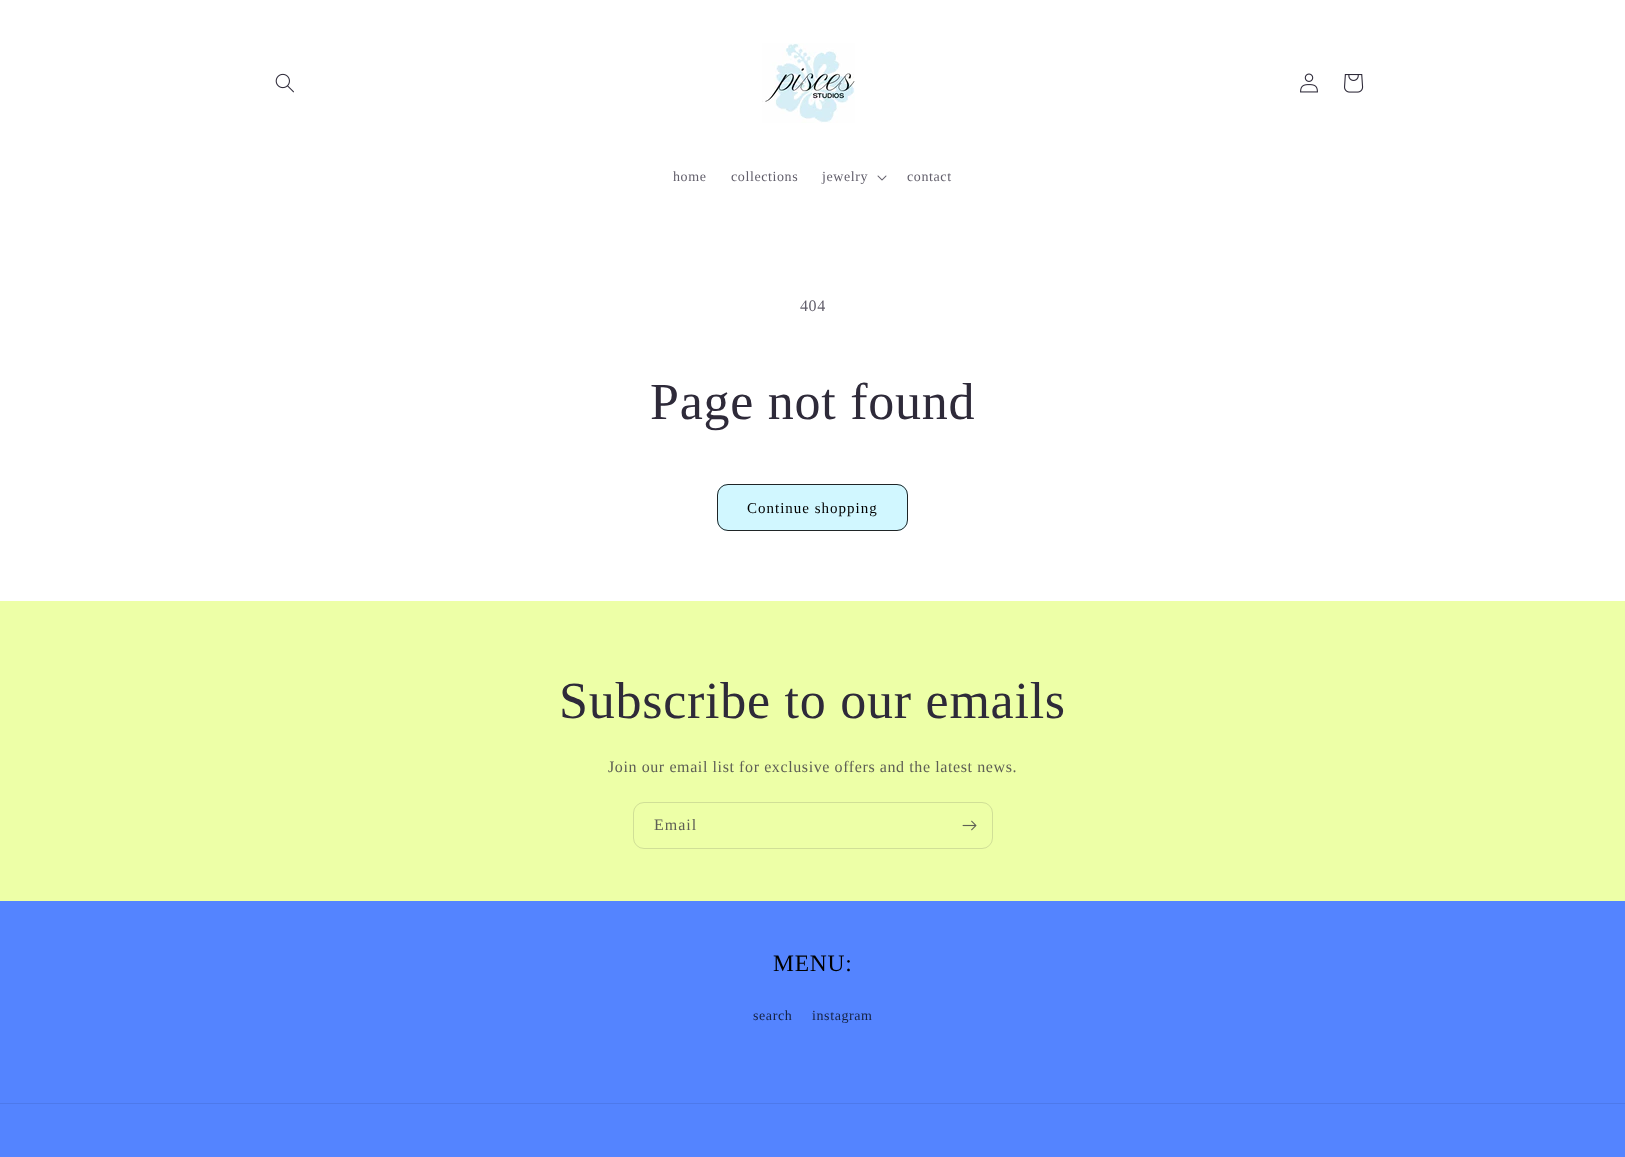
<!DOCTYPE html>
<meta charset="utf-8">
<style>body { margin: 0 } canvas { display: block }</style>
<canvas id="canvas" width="1625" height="1157"></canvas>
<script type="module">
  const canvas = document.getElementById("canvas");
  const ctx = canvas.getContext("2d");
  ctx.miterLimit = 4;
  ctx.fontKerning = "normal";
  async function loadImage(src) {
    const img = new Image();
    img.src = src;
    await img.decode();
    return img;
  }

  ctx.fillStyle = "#ffffff";
  ctx.fillRect(0, 0, 1625, 1157);
  ctx.drawImage(await loadImage("img1.png"), 275, 73, 19, 20);
  ctx.drawImage(await loadImage("img2.png"), 762, 43, 93, 80);
  ctx.drawImage(await loadImage("img3.png"), 1300, 73, 18, 20);
  ctx.drawImage(await loadImage("img4.png"), 1344, 74, 20, 19);
  ctx.letterSpacing = "0.6px";
  ctx.font = "14px Liberation Serif";
  ctx.fillStyle = "#625f6b";
  ctx.fillText("home", 673, 181);
  ctx.fillText("collections", 731, 181);
  ctx.fillText("jewelry", 822, 181);
  ctx.drawImage(await loadImage("img5.png"), 877, 175, 10, 6);
  ctx.fillText("contact", 907, 181);
  ctx.font = "16px Liberation Serif";
  ctx.fillText("404", 800, 311);
  ctx.letterSpacing = "0.75px";
  ctx.font = "52px Liberation Serif";
  ctx.fillStyle = "#2e2a39";
  ctx.fillText("Page not found", 650, 419);
  ctx.fillStyle = "#d1f7ff";
  ctx.beginPath();
  ctx.roundRect(717, 484, 191, 47, 11);
  ctx.fill();
  ctx.beginPath();
  ctx.roundRect(717.5, 484.5, 190, 46, 10.5);
  ctx.strokeStyle = "#d1f7ff";
  ctx.stroke();
  ctx.beginPath();
  ctx.roundRect(717.5, 484.5, 190, 46, 10.5);
  ctx.strokeStyle = "rgba(0, 0, 0, 0.85)";
  ctx.stroke();
  ctx.letterSpacing = "1px";
  ctx.font = "15px Liberation Serif";
  ctx.fillStyle = "#000000";
  ctx.fillText("Continue shopping", 747, 513);
  ctx.fillStyle = "#edffa7";
  ctx.fillRect(0, 601, 1625, 300);
  ctx.letterSpacing = "0.75px";
  ctx.font = "52px Liberation Serif";
  ctx.fillStyle = "#2e2a39";
  ctx.fillText("Subscribe to our emails", 559, 718);
  ctx.letterSpacing = "0.6px";
  ctx.font = "16px Liberation Serif";
  ctx.fillStyle = "#5e5f55";
  ctx.fillText("Join our email list for exclusive offers and the latest news.", 608, 772);
  ctx.beginPath();
  ctx.roundRect(633.5, 802.5, 359, 46, 10.5);
  ctx.strokeStyle = "#d0df97";
  ctx.stroke();
  ctx.letterSpacing = "1px";
  ctx.fillText("Email", 654, 830);
  ctx.drawImage(await loadImage("img6.png"), 962, 820, 15, 11);
  ctx.fillStyle = "#5484ff";
  ctx.fillRect(0, 901, 1625, 256);
  ctx.letterSpacing = "0.75px";
  ctx.font = "23.5px Liberation Serif";
  ctx.fillStyle = "#000000";
  ctx.fillText("MENU:", 773, 971);
  ctx.letterSpacing = "0.6px";
  ctx.font = "14px Liberation Serif";
  ctx.fillStyle = "#152140";
  ctx.fillText("search", 753, 1020);
  ctx.fillText("instagram", 812, 1020);
  ctx.fillStyle = "#4d79eb";
  ctx.fillRect(0, 1103, 1625, 1);
</script>
